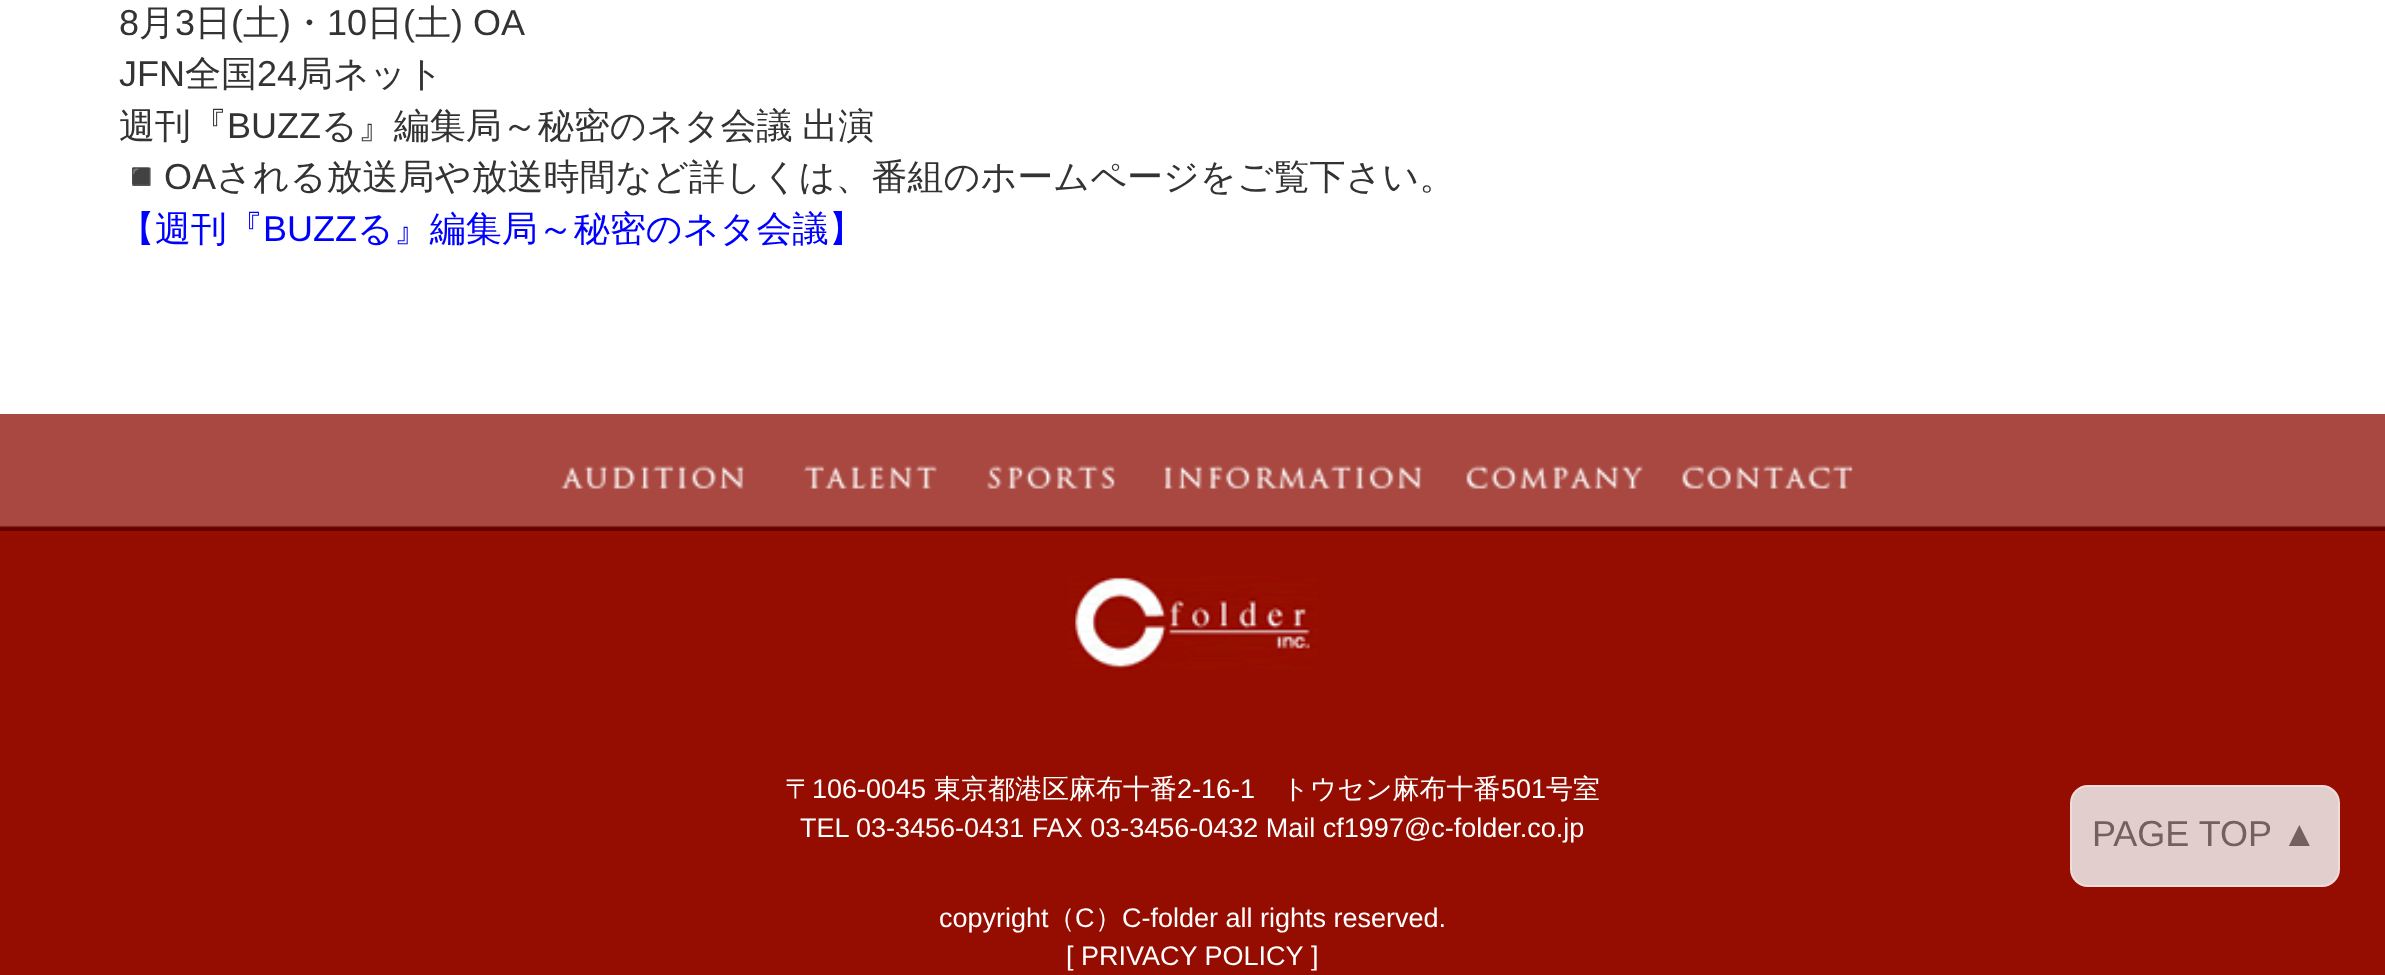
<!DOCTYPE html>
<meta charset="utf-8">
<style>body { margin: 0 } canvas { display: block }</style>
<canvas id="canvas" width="2385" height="975"></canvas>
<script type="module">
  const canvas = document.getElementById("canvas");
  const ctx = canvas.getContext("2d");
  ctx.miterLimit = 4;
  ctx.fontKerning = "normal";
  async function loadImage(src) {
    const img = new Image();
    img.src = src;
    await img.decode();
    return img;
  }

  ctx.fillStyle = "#ffffff";
  ctx.fillRect(0, 0, 2385, 975);
  ctx.font = "36px Liberation Sans";
  ctx.fillStyle = "#333333";
  ctx.fillText("8", 119, 35);
  ctx.font = "500 36px WenQuanYi Zen Hei";
  ctx.fillText("月", 139, 35);
  ctx.font = "36px Liberation Sans";
  ctx.fillText("3", 175, 35);
  ctx.font = "500 36px WenQuanYi Zen Hei";
  ctx.fillText("日", 195, 35);
  ctx.font = "36px Liberation Sans";
  ctx.fillText("(", 231, 35);
  ctx.font = "500 36px WenQuanYi Zen Hei";
  ctx.fillText("土", 243, 35);
  ctx.font = "36px Liberation Sans";
  ctx.fillText(")", 279, 35);
  ctx.font = "500 36px WenQuanYi Zen Hei";
  ctx.fillText("・", 291, 35);
  ctx.font = "36px Liberation Sans";
  ctx.fillText("10", 327, 35);
  ctx.font = "500 36px WenQuanYi Zen Hei";
  ctx.fillText("日", 367, 35);
  ctx.font = "36px Liberation Sans";
  ctx.fillText("(", 403, 35);
  ctx.font = "500 36px WenQuanYi Zen Hei";
  ctx.fillText("土", 415, 35);
  ctx.font = "36px Liberation Sans";
  ctx.fillText(") OA", 451, 35);
  ctx.fillText("JFN", 119, 86);
  ctx.font = "500 36px WenQuanYi Zen Hei";
  ctx.fillText("全国", 185, 86);
  ctx.font = "36px Liberation Sans";
  ctx.fillText("24", 257, 86);
  ctx.font = "500 36px WenQuanYi Zen Hei";
  ctx.fillText("局ネット", 297, 86);
  ctx.fillText("週刊『", 119, 138);
  ctx.font = "36px Liberation Sans";
  ctx.fillText("BUZZ", 227, 138);
  ctx.wordSpacing = "-1px";
  ctx.font = "500 36px WenQuanYi Zen Hei";
  ctx.fillText("る』編集局～秘密のネタ会議 出演", 321, 138);
  ctx.wordSpacing = "0px";
  ctx.font = "36px Noto Color Emoji";
  ctx.fillText("◾️", 119, 189);
  ctx.font = "36px Liberation Sans";
  ctx.fillText("OA", 164, 189);
  ctx.font = "500 36px WenQuanYi Zen Hei";
  ctx.fillText("される放送局や放送時間など詳しくは、番組のホームページをご覧下さい。", 216, 189);
  ctx.fillStyle = "#0000ff";
  ctx.fillText("【週刊『", 119, 241);
  ctx.font = "36px Liberation Sans";
  ctx.fillText("BUZZ", 263, 241);
  ctx.font = "500 36px WenQuanYi Zen Hei";
  ctx.fillText("る』編集局～秘密のネタ会議】", 357, 241);
  ctx.drawImage(await loadImage("img1.png"), 0, 414, 2385, 117);
  ctx.drawImage(await loadImage("img2.png"), 560, 465, 185, 24);
  ctx.drawImage(await loadImage("img3.png"), 803, 465, 134, 24);
  ctx.drawImage(await loadImage("img4.png"), 987, 465, 129, 24);
  ctx.drawImage(await loadImage("img5.png"), 1163, 465, 260, 24);
  ctx.drawImage(await loadImage("img6.png"), 1466, 465, 177, 24);
  ctx.drawImage(await loadImage("img7.png"), 1681, 465, 172, 24);
  ctx.fillStyle = "#950d00";
  ctx.fillRect(0, 531, 2385, 444);
  ctx.drawImage(await loadImage("img8.png"), 1069, 576, 249, 94);
  ctx.font = "500 27px WenQuanYi Zen Hei";
  ctx.fillStyle = "#ffffff";
  ctx.fillText("〒", 785, 798);
  ctx.font = "27px Liberation Sans";
  ctx.fillText("106-0045", 812, 798);
  ctx.font = "500 27px WenQuanYi Zen Hei";
  ctx.fillText("東京都港区麻布十番", 934, 798);
  ctx.font = "27px Liberation Sans";
  ctx.fillText("2-16-1", 1177, 798);
  ctx.font = "500 27px WenQuanYi Zen Hei";
  ctx.fillText("トウセン麻布十番", 1282, 798);
  ctx.font = "27px Liberation Sans";
  ctx.fillText("501", 1501, 798);
  ctx.font = "500 27px WenQuanYi Zen Hei";
  ctx.fillText("号室", 1546, 798);
  ctx.font = "27px Liberation Sans";
  ctx.fillText("TEL 03-3456-0431 FAX 03-3456-0432 Mail cf1997@c-folder.co.jp", 800, 837);
  ctx.fillText("copyright", 939, 927);
  ctx.font = "500 27px WenQuanYi Zen Hei";
  ctx.fillText("（", 1048, 927);
  ctx.font = "27px Liberation Sans";
  ctx.fillText("C", 1075, 927);
  ctx.font = "500 27px WenQuanYi Zen Hei";
  ctx.fillText("）", 1095, 927);
  ctx.font = "27px Liberation Sans";
  ctx.fillText("C-folder all rights reserved.", 1122, 927);
  ctx.fillText("[ PRIVACY POLICY", 1066, 965);
  ctx.fillText("]", 1311, 965);
  ctx.fillStyle = "#e2cfcd";
  ctx.beginPath();
  ctx.roundRect(2071, 786, 268, 100, 17);
  ctx.fill();
  ctx.strokeStyle = "#f0dddb";
  ctx.lineWidth = 2;
  ctx.stroke();
  ctx.font = "36px Liberation Sans";
  ctx.fillStyle = "#74615f";
  ctx.fillText("PAGE TOP ▲", 2092, 846);
</script>
